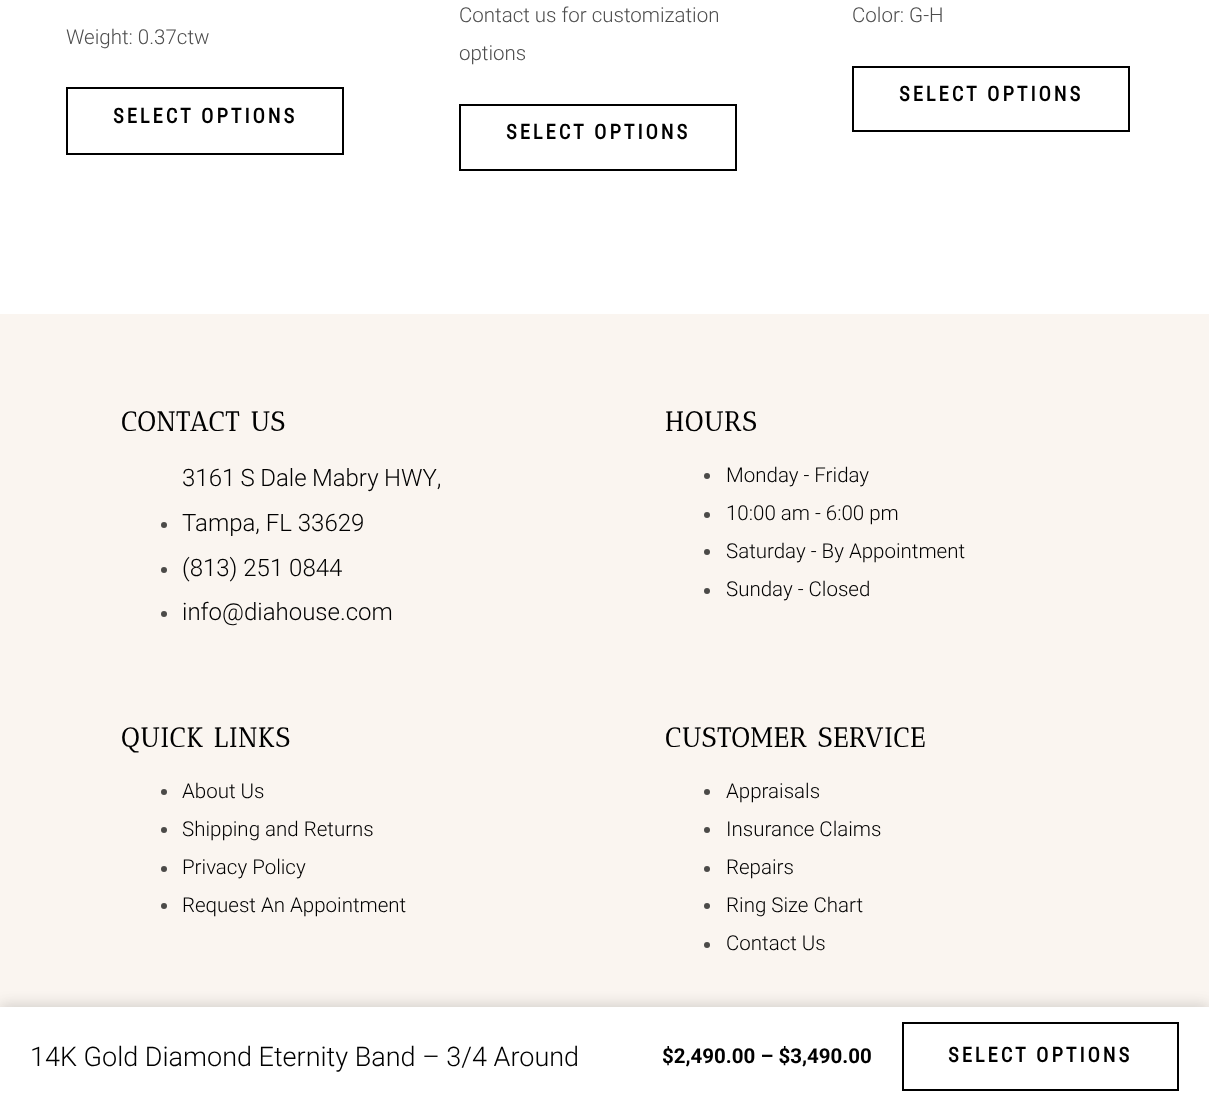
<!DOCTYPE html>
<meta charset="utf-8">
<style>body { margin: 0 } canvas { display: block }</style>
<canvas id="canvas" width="1209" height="1105"></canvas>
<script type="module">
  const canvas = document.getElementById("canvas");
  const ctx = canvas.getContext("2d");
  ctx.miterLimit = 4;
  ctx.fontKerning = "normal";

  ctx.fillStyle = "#ffffff";
  ctx.fillRect(0, 0, 1209, 1105);
  ctx.font = "300 20.5px Roboto";
  ctx.fillStyle = "#4d4d4d";
  ctx.fillText("Weight: 0.37ctw", 66, 44);
  ctx.strokeStyle = "#000000";
  ctx.lineWidth = 2;
  ctx.strokeRect(67, 88, 276, 66);
  ctx.letterSpacing = "3px";
  ctx.font = "bold 20.5px Roboto Condensed";
  ctx.fillStyle = "#000000";
  ctx.fillText("SELECT OPTIONS", 113, 123);
  ctx.letterSpacing = "0px";
  ctx.font = "300 20.5px Roboto";
  ctx.fillStyle = "#4d4d4d";
  ctx.fillText("Contact us for customization", 459, 22);
  ctx.fillText("options", 459, 60);
  ctx.strokeRect(460, 105, 276, 65);
  ctx.letterSpacing = "3px";
  ctx.font = "bold 20.5px Roboto Condensed";
  ctx.fillStyle = "#000000";
  ctx.fillText("SELECT OPTIONS", 506, 139);
  ctx.letterSpacing = "0px";
  ctx.font = "300 20.5px Roboto";
  ctx.fillStyle = "#4d4d4d";
  ctx.fillText("Color: G-H", 852, 22);
  ctx.strokeRect(853, 67, 276, 64);
  ctx.letterSpacing = "3px";
  ctx.font = "bold 20.5px Roboto Condensed";
  ctx.fillStyle = "#000000";
  ctx.fillText("SELECT OPTIONS", 899, 101);
  ctx.fillStyle = "#faf5f0";
  ctx.fillRect(0, 314, 1209, 693);
  ctx.letterSpacing = "1.5px";
  ctx.font = "bold 27px Antic Didone";
  ctx.fillStyle = "#000000";
  ctx.fillText("CONTACT US", 121, 431);
  ctx.fillStyle = "#4b4a48";
  ctx.beginPath();
  ctx.arc(164, 525, 3, 0, Math.PI * 2);
  ctx.fill();
  ctx.letterSpacing = "0px";
  ctx.wordSpacing = "-0.5px";
  ctx.font = "300 24px Roboto";
  ctx.fillStyle = "#000000";
  ctx.fillText("3161 S Dale Mabry HWY,", 182, 486);
  ctx.wordSpacing = "0px";
  ctx.fillText("Tampa, FL 33629", 182, 531);
  ctx.fillStyle = "#4b4a48";
  ctx.beginPath();
  ctx.arc(164, 570, 3, 0, Math.PI * 2);
  ctx.fill();
  ctx.fillStyle = "#000000";
  ctx.fillText("(813) 251 0844", 182, 576);
  ctx.fillStyle = "#4b4a48";
  ctx.beginPath();
  ctx.arc(164, 614, 3, 0, Math.PI * 2);
  ctx.fill();
  ctx.fillStyle = "#000000";
  ctx.fillText("info@diahouse.com", 182, 620);
  ctx.letterSpacing = "1.5px";
  ctx.font = "bold 27px Antic Didone";
  ctx.fillText("HOURS", 665, 431);
  ctx.fillStyle = "#4b4a48";
  ctx.beginPath();
  ctx.arc(707, 476, 3, 0, Math.PI * 2);
  ctx.fill();
  ctx.letterSpacing = "0px";
  ctx.font = "300 20.5px Roboto";
  ctx.fillStyle = "#000000";
  ctx.fillText("Monday - Friday", 726, 482);
  ctx.fillStyle = "#4b4a48";
  ctx.beginPath();
  ctx.arc(707, 515, 3, 0, Math.PI * 2);
  ctx.fill();
  ctx.fillStyle = "#000000";
  ctx.fillText("10:00 am - 6:00 pm", 726, 520);
  ctx.fillStyle = "#4b4a48";
  ctx.beginPath();
  ctx.arc(707, 552, 3, 0, Math.PI * 2);
  ctx.fill();
  ctx.fillStyle = "#000000";
  ctx.fillText("Saturday - By Appointment", 726, 558);
  ctx.fillStyle = "#4b4a48";
  ctx.beginPath();
  ctx.arc(707, 591, 3, 0, Math.PI * 2);
  ctx.fill();
  ctx.fillStyle = "#000000";
  ctx.fillText("Sunday - Closed", 726, 596);
  ctx.letterSpacing = "1.5px";
  ctx.font = "bold 27px Antic Didone";
  ctx.fillText("QUICK LINKS", 121, 747);
  ctx.fillStyle = "#4b4a48";
  ctx.beginPath();
  ctx.arc(164, 792, 3, 0, Math.PI * 2);
  ctx.fill();
  ctx.letterSpacing = "0px";
  ctx.font = "300 20.5px Roboto";
  ctx.fillStyle = "#000000";
  ctx.fillText("About Us", 182, 798);
  ctx.fillStyle = "#4b4a48";
  ctx.beginPath();
  ctx.arc(164, 830, 3, 0, Math.PI * 2);
  ctx.fill();
  ctx.fillStyle = "#000000";
  ctx.fillText("Shipping and Returns", 182, 836);
  ctx.fillStyle = "#4b4a48";
  ctx.beginPath();
  ctx.arc(164, 869, 3, 0, Math.PI * 2);
  ctx.fill();
  ctx.fillStyle = "#000000";
  ctx.fillText("Privacy Policy", 182, 874);
  ctx.fillStyle = "#4b4a48";
  ctx.beginPath();
  ctx.arc(164, 906, 3, 0, Math.PI * 2);
  ctx.fill();
  ctx.fillStyle = "#000000";
  ctx.fillText("Request An Appointment", 182, 912);
  ctx.letterSpacing = "1.5px";
  ctx.font = "bold 27px Antic Didone";
  ctx.fillText("CUSTOMER SERVICE", 665, 747);
  ctx.fillStyle = "#4b4a48";
  ctx.beginPath();
  ctx.arc(707, 792, 3, 0, Math.PI * 2);
  ctx.fill();
  ctx.letterSpacing = "0px";
  ctx.font = "300 20.5px Roboto";
  ctx.fillStyle = "#000000";
  ctx.fillText("Appraisals", 726, 798);
  ctx.fillStyle = "#4b4a48";
  ctx.beginPath();
  ctx.arc(707, 830, 3, 0, Math.PI * 2);
  ctx.fill();
  ctx.fillStyle = "#000000";
  ctx.fillText("Insurance Claims", 726, 836);
  ctx.fillStyle = "#4b4a48";
  ctx.beginPath();
  ctx.arc(707, 869, 3, 0, Math.PI * 2);
  ctx.fill();
  ctx.fillStyle = "#000000";
  ctx.fillText("Repairs", 726, 874);
  ctx.fillStyle = "#4b4a48";
  ctx.beginPath();
  ctx.arc(707, 906, 3, 0, Math.PI * 2);
  ctx.fill();
  ctx.fillStyle = "#000000";
  ctx.fillText("Ring Size Chart", 726, 912);
  ctx.fillStyle = "#4b4a48";
  ctx.beginPath();
  ctx.arc(707, 945, 3, 0, Math.PI * 2);
  ctx.fill();
  ctx.fillStyle = "#000000";
  ctx.fillText("Contact Us", 726, 950);
  ctx.fillStyle = "rgba(0, 0, 0, 0.06)";
  ctx.filter = "blur(7px)";
  ctx.beginPath();
  ctx.rect(0, 1005, 1209, 99);
  ctx.fill();
  ctx.filter = "none";
  ctx.fillStyle = "rgba(0, 0, 0, 0.1)";
  ctx.filter = "blur(7.5px)";
  ctx.beginPath();
  ctx.rect(0, 1005, 1209, 99);
  ctx.fill();
  ctx.filter = "none";
  ctx.fillStyle = "#ffffff";
  ctx.fillRect(0, 1007, 1209, 98);
  ctx.font = "300 27px Roboto";
  ctx.fillStyle = "#000000";
  ctx.fillText("14K Gold Diamond Eternity Band – 3/4 Around", 30, 1066);
  ctx.font = "bold 20.5px Roboto";
  ctx.fillText("$2,490.00 – $3,490.00", 662, 1063);
  ctx.strokeRect(903, 1023, 275, 67);
  ctx.letterSpacing = "3px";
  ctx.font = "bold 20.5px Roboto Condensed";
  ctx.fillText("SELECT OPTIONS", 948, 1062);
</script>
